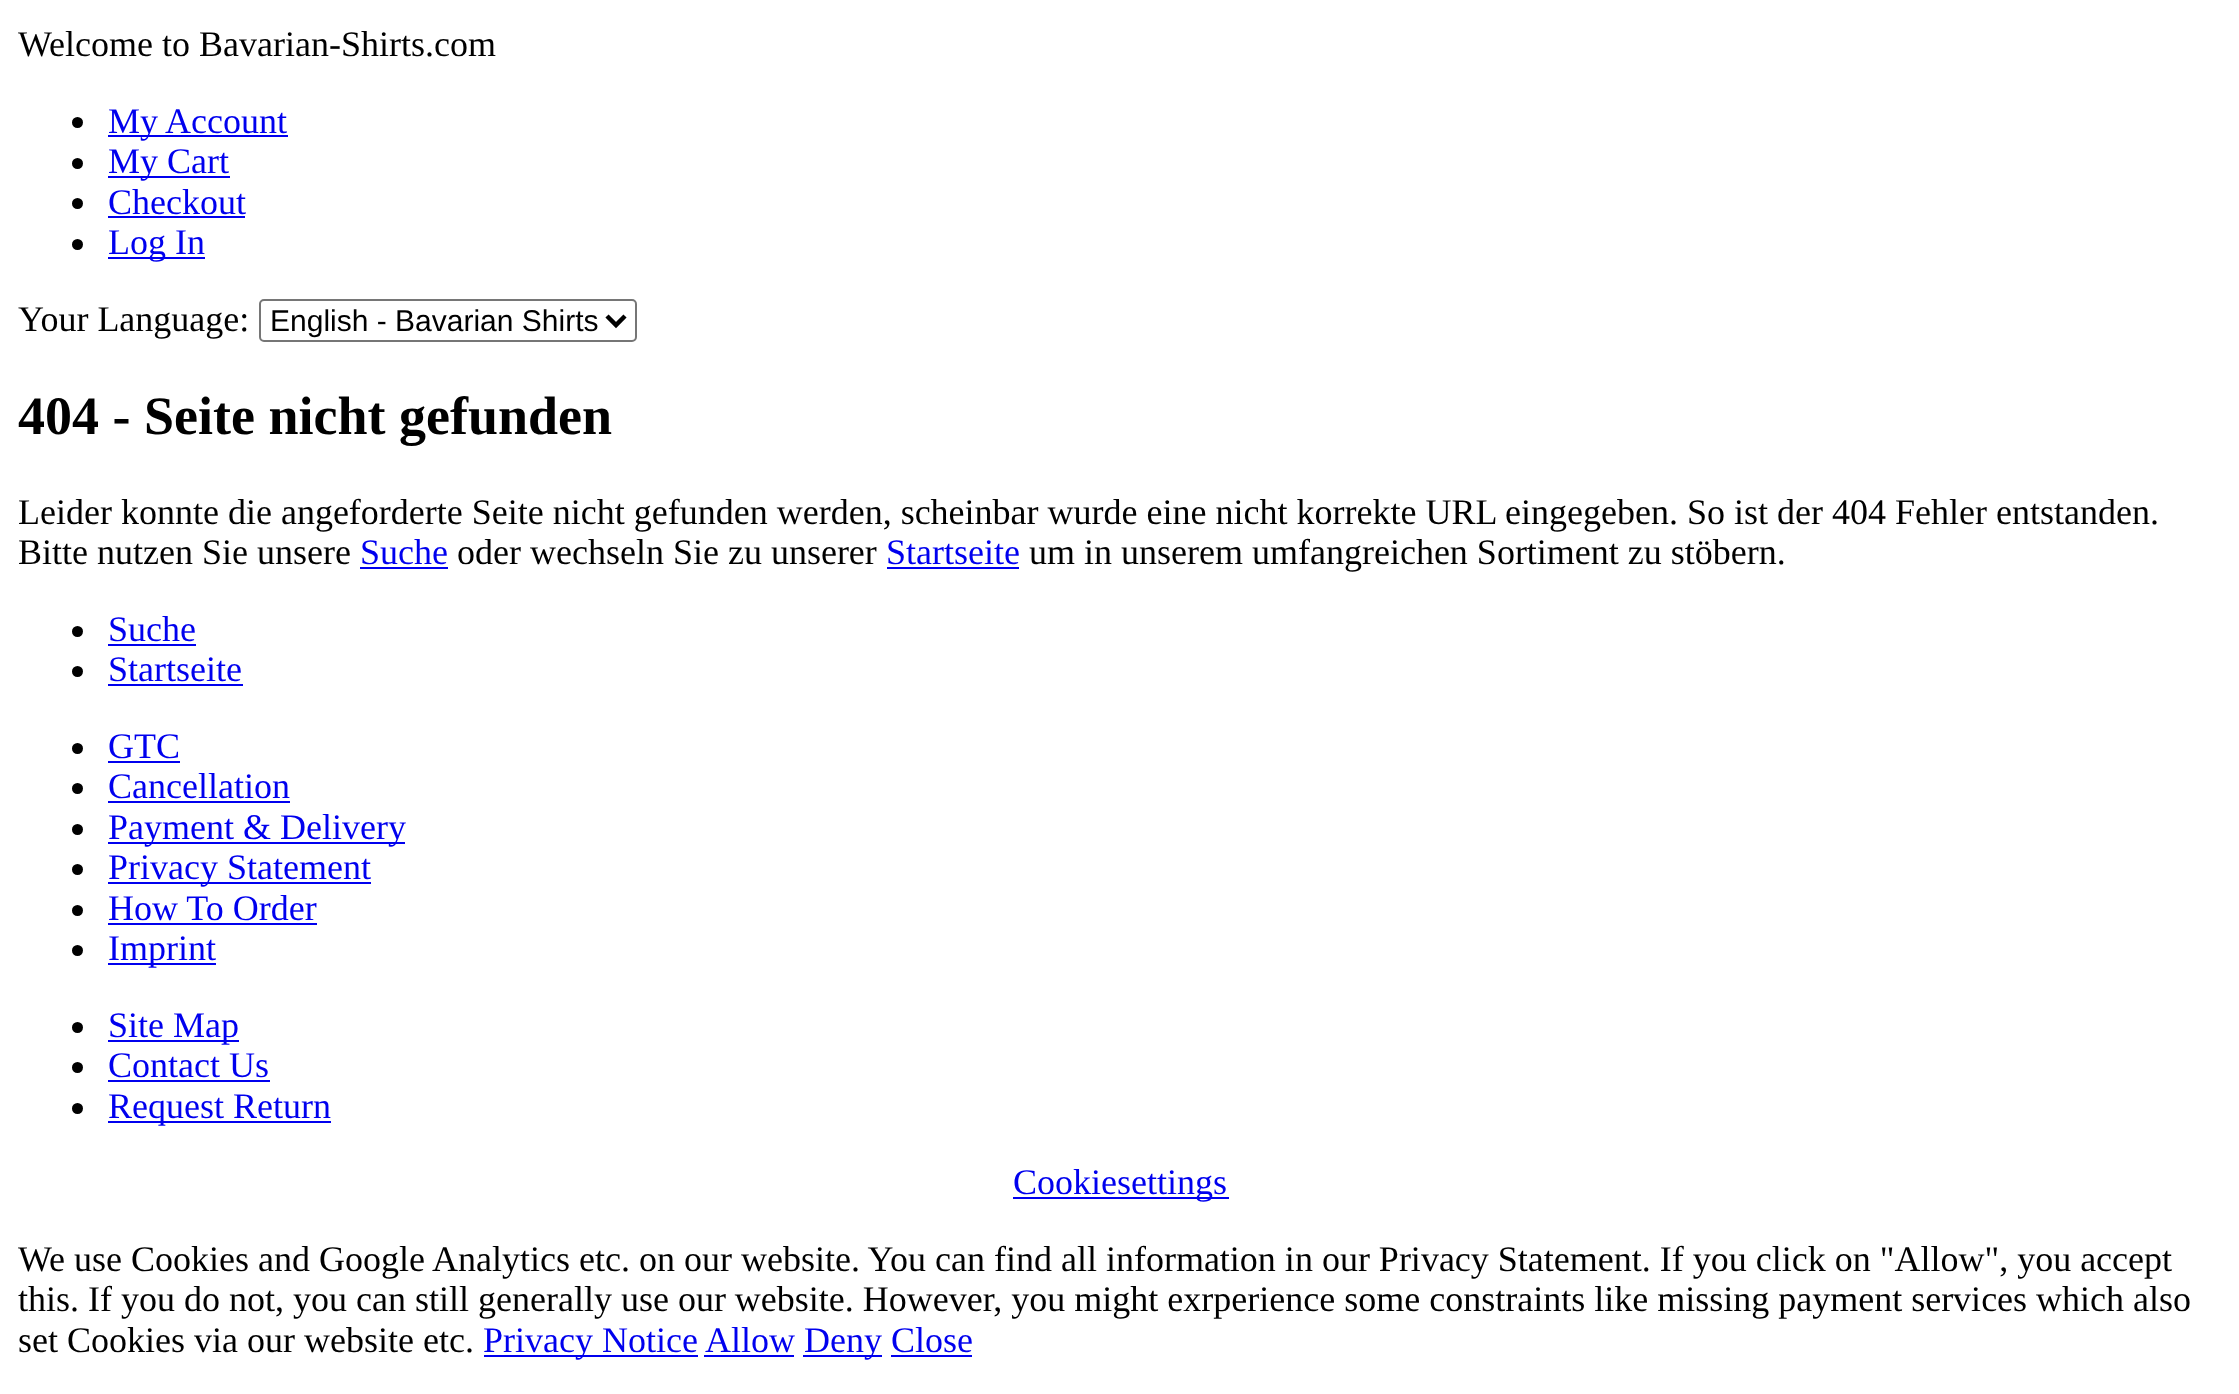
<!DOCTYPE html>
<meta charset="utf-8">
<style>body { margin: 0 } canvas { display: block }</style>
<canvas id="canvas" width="2239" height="1394"></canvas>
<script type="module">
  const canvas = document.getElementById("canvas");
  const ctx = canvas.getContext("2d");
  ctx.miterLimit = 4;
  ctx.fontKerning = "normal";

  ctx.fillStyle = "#ffffff";
  ctx.fillRect(0, 0, 2239, 1394);
  ctx.font = "36px Liberation Serif";
  ctx.fillStyle = "#000000";
  ctx.fillText("Welcome to Bavarian-Shirts.com", 18, 56);
  ctx.beginPath();
  ctx.arc(77.5, 122.5, 5.5, 0, Math.PI * 2);
  ctx.fill();
  ctx.fillStyle = "#0000ee";
  ctx.fillRect(108, 135, 180, 2);
  ctx.fillText("My Account", 108, 133);
  ctx.fillStyle = "#000000";
  ctx.beginPath();
  ctx.arc(77.5, 163.5, 5.5, 0, Math.PI * 2);
  ctx.fill();
  ctx.fillStyle = "#0000ee";
  ctx.fillRect(108, 176, 122, 2);
  ctx.fillText("My Cart", 108, 173);
  ctx.fillStyle = "#000000";
  ctx.beginPath();
  ctx.arc(77.5, 203.5, 5.5, 0, Math.PI * 2);
  ctx.fill();
  ctx.fillStyle = "#0000ee";
  ctx.fillText("Checkout", 108, 214);
  ctx.fillRect(108, 216, 137, 2);
  ctx.fillStyle = "#000000";
  ctx.beginPath();
  ctx.arc(77.5, 244.5, 5.5, 0, Math.PI * 2);
  ctx.fill();
  ctx.fillStyle = "#0000ee";
  ctx.fillRect(108, 257, 97, 2);
  ctx.fillText("Log In", 108, 254);
  ctx.fillStyle = "#000000";
  ctx.fillText("Your Language:", 18, 331);
  ctx.beginPath();
  ctx.roundRect(260, 300, 376, 41, 4);
  ctx.strokeStyle = "#767676";
  ctx.lineWidth = 2;
  ctx.stroke();
  ctx.beginPath();
  ctx.moveTo(607, 316);
  ctx.lineTo(616, 325);
  ctx.lineTo(625, 316);
  ctx.strokeStyle = "#000000";
  ctx.lineWidth = 4.5;
  ctx.stroke();
  ctx.font = "30px Liberation Sans";
  ctx.fillText("English - Bavarian Shirts", 270, 331);
  ctx.font = "bold 54px Liberation Serif";
  ctx.fillText("404 - Seite nicht gefunden", 18, 434);
  ctx.font = "36px Liberation Serif";
  ctx.fillText("Leider konnte die angeforderte Seite nicht gefunden werden, scheinbar wurde eine nicht korrekte URL eingegeben. So ist der 404 Fehler entstanden.", 18, 524);
  ctx.fillText("Bitte nutzen Sie unsere", 18, 564);
  ctx.fillStyle = "#0000ee";
  ctx.fillText("Suche", 360, 564);
  ctx.fillRect(360, 567, 88, 2);
  ctx.fillStyle = "#000000";
  ctx.fillText("oder wechseln Sie zu unserer", 457, 564);
  ctx.fillStyle = "#0000ee";
  ctx.fillText("Startseite", 886, 564);
  ctx.fillRect(887, 567, 132, 2);
  ctx.fillStyle = "#000000";
  ctx.fillText("um in unserem umfangreichen Sortiment zu stöbern.", 1029, 564);
  ctx.beginPath();
  ctx.arc(77.5, 631.5, 5.5, 0, Math.PI * 2);
  ctx.fill();
  ctx.fillStyle = "#0000ee";
  ctx.fillText("Suche", 108, 641);
  ctx.fillRect(108, 644, 88, 2);
  ctx.fillStyle = "#000000";
  ctx.beginPath();
  ctx.arc(77.5, 671.5, 5.5, 0, Math.PI * 2);
  ctx.fill();
  ctx.fillStyle = "#0000ee";
  ctx.fillText("Startseite", 108, 681);
  ctx.fillRect(108, 684, 135, 2);
  ctx.fillStyle = "#000000";
  ctx.beginPath();
  ctx.arc(77.5, 748.5, 5.5, 0, Math.PI * 2);
  ctx.fill();
  ctx.fillStyle = "#0000ee";
  ctx.fillText("GTC", 108, 758);
  ctx.fillRect(108, 761, 72, 2);
  ctx.fillStyle = "#000000";
  ctx.beginPath();
  ctx.arc(77.5, 788.5, 5.5, 0, Math.PI * 2);
  ctx.fill();
  ctx.fillStyle = "#0000ee";
  ctx.fillText("Cancellation", 108, 798);
  ctx.fillRect(108, 801, 182, 2);
  ctx.fillStyle = "#000000";
  ctx.beginPath();
  ctx.arc(77.5, 829.5, 5.5, 0, Math.PI * 2);
  ctx.fill();
  ctx.fillStyle = "#0000ee";
  ctx.fillRect(108, 842, 297, 2);
  ctx.fillText("Payment & Delivery", 108, 839);
  ctx.fillStyle = "#000000";
  ctx.beginPath();
  ctx.arc(77.5, 869.5, 5.5, 0, Math.PI * 2);
  ctx.fill();
  ctx.fillStyle = "#0000ee";
  ctx.fillRect(108, 882, 263, 2);
  ctx.fillText("Privacy Statement", 108, 879);
  ctx.fillStyle = "#000000";
  ctx.beginPath();
  ctx.arc(77.5, 910.5, 5.5, 0, Math.PI * 2);
  ctx.fill();
  ctx.fillStyle = "#0000ee";
  ctx.fillText("How To Order", 108, 920);
  ctx.fillRect(108, 923, 209, 2);
  ctx.fillStyle = "#000000";
  ctx.beginPath();
  ctx.arc(77.5, 950.5, 5.5, 0, Math.PI * 2);
  ctx.fill();
  ctx.fillStyle = "#0000ee";
  ctx.fillRect(108, 963, 108, 2);
  ctx.fillText("Imprint", 108, 960);
  ctx.fillStyle = "#000000";
  ctx.beginPath();
  ctx.arc(77.5, 1027.5, 5.5, 0, Math.PI * 2);
  ctx.fill();
  ctx.fillStyle = "#0000ee";
  ctx.fillRect(108, 1040, 131, 2);
  ctx.fillText("Site Map", 108, 1037);
  ctx.fillStyle = "#000000";
  ctx.beginPath();
  ctx.arc(77.5, 1067.5, 5.5, 0, Math.PI * 2);
  ctx.fill();
  ctx.fillStyle = "#0000ee";
  ctx.fillText("Contact Us", 108, 1077);
  ctx.fillRect(108, 1080, 162, 2);
  ctx.fillStyle = "#000000";
  ctx.beginPath();
  ctx.arc(77.5, 1108.5, 5.5, 0, Math.PI * 2);
  ctx.fill();
  ctx.fillStyle = "#0000ee";
  ctx.fillRect(108, 1121, 223, 2);
  ctx.fillText("Request Return", 108, 1118);
  ctx.fillRect(1013, 1197, 216, 2);
  ctx.fillText("Cookiesettings", 1013, 1194);
  ctx.fillStyle = "#000000";
  ctx.fillText("We use Cookies and Google Analytics etc. on our website. You can find all information in our Privacy Statement. If you click on \"Allow\", you accept", 18, 1271);
  ctx.fillText("this. If you do not, you can still generally use our website. However, you might exrperience some constraints like missing payment services which also", 18, 1311);
  ctx.fillText("set Cookies via our website etc.", 18, 1352);
  ctx.fillStyle = "#0000ee";
  ctx.fillRect(484, 1355, 214, 2);
  ctx.fillText("Privacy Notice", 483, 1352);
  ctx.fillText("Allow", 705, 1352);
  ctx.fillRect(704, 1355, 90, 2);
  ctx.fillRect(803, 1355, 79, 2);
  ctx.fillText("Deny Close", 804, 1352);
  ctx.fillRect(891, 1355, 81, 2);
</script>
